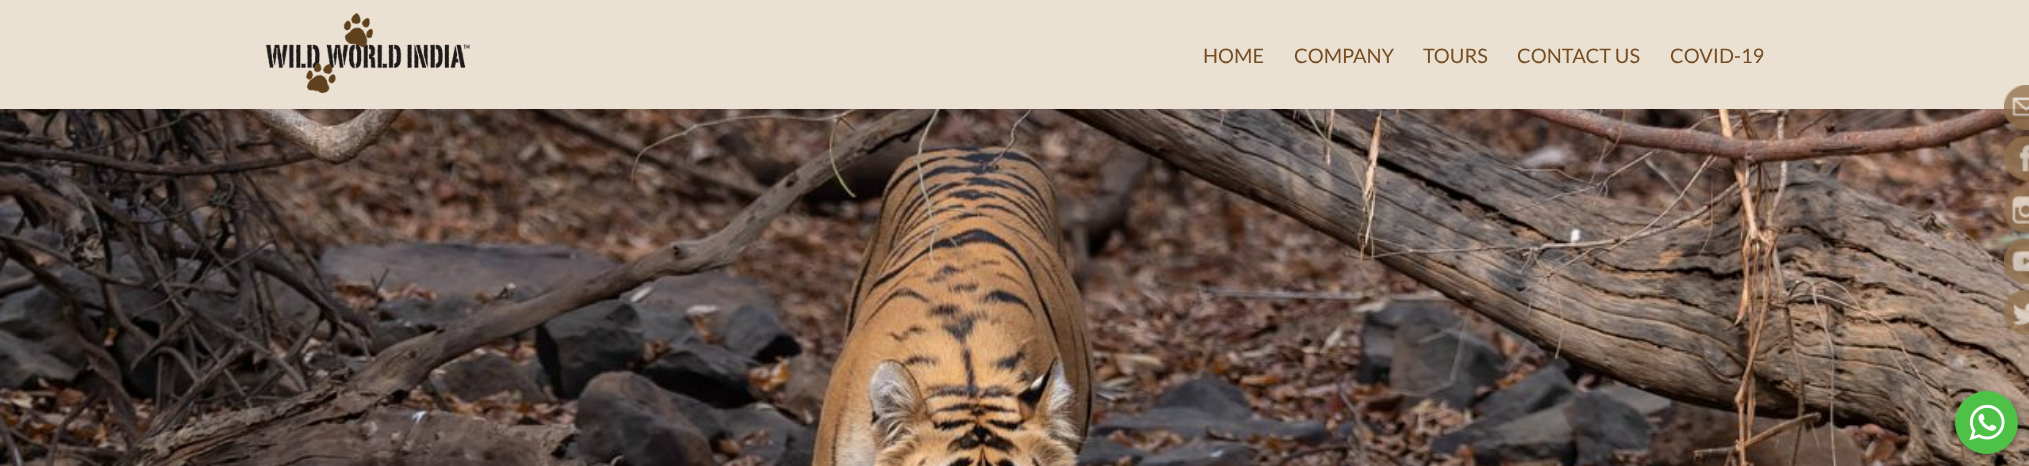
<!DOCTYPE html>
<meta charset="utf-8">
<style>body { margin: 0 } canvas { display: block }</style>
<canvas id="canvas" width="2029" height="466"></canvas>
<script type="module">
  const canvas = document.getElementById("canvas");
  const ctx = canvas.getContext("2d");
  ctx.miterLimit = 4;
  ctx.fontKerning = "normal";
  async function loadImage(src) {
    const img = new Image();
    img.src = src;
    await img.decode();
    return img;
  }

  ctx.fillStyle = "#ffffff";
  ctx.fillRect(0, 0, 2029, 466);
  ctx.fillStyle = "#eae1d3";
  ctx.fillRect(0, 0, 2029, 109);
  ctx.drawImage(await loadImage("img1.png"), 265, 13, 205, 80);
  ctx.font = "20px Lato";
  ctx.fillStyle = "#754e24";
  ctx.fillText("HOME", 1203, 63);
  ctx.fillText("COMPANY", 1294, 63);
  ctx.fillText("TOURS", 1423, 63);
  ctx.fillText("CONTACT US", 1517, 63);
  ctx.fillText("COVID-19", 1670, 63);
  ctx.drawImage(await loadImage("img7.png"), 0, 109, 2029, 357);
  ctx.drawImage(await loadImage("img2.png"), 2004, 85, 25, 45);
  ctx.drawImage(await loadImage("img3.png"), 2004, 136, 25, 45);
  ctx.drawImage(await loadImage("img4.png"), 2004, 187, 25, 46);
  ctx.drawImage(await loadImage("img5.png"), 2004, 238, 25, 46);
  ctx.drawImage(await loadImage("img6.png"), 2004, 290, 25, 45);
  ctx.fillStyle = "rgba(0, 0, 0, 0.4)";
  ctx.filter = "blur(4px)";
  ctx.beginPath();
  ctx.roundRect(1958, 394, 62, 62, 31);
  ctx.fill();
  ctx.filter = "none";
  ctx.fillStyle = "#4dc247";
  ctx.beginPath();
  ctx.arc(1986.5, 422.5, 31.5, 0, Math.PI * 2);
  ctx.fill();
  ctx.drawImage(await loadImage("img8.png"), 1969, 404, 36, 37);
</script>
